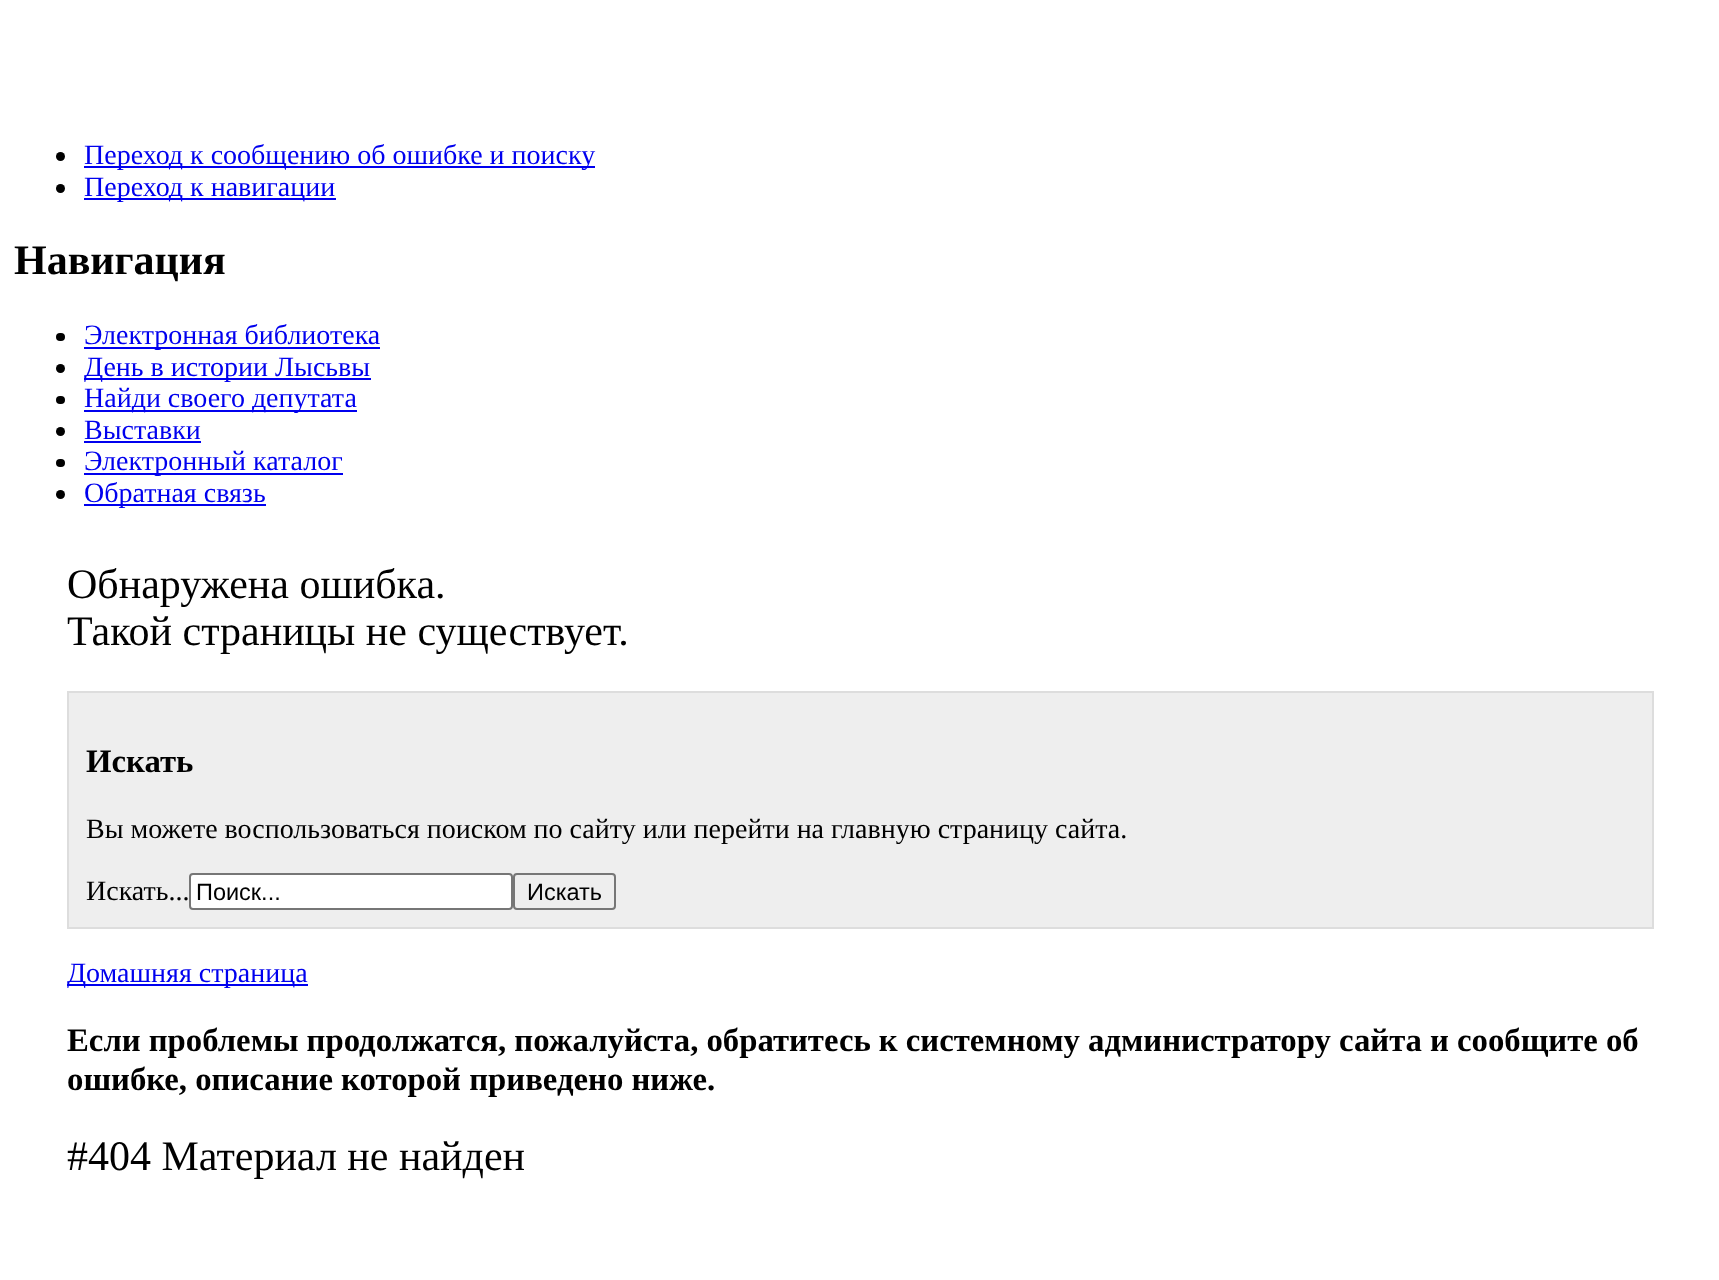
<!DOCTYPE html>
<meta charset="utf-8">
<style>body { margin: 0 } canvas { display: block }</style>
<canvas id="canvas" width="1719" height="1280"></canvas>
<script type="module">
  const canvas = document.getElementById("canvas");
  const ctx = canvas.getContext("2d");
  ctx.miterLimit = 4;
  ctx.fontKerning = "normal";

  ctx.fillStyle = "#ffffff";
  ctx.fillRect(0, 0, 1719, 1280);
  ctx.fillStyle = "#000000";
  ctx.beginPath();
  ctx.arc(60.5, 156.5, 4.5, 0, Math.PI * 2);
  ctx.fill();
  ctx.fillStyle = "#0000ee";
  ctx.fillRect(84, 166, 511, 2);
  ctx.font = "28px Liberation Serif";
  ctx.fillText("Переход к сообщению об ошибке и поиску", 84, 164);
  ctx.fillStyle = "#000000";
  ctx.beginPath();
  ctx.arc(60.5, 188.5, 4.5, 0, Math.PI * 2);
  ctx.fill();
  ctx.fillStyle = "#0000ee";
  ctx.fillRect(84, 198, 252, 2);
  ctx.fillText("Переход к навигации", 84, 196);
  ctx.font = "bold 42px Liberation Serif";
  ctx.fillStyle = "#000000";
  ctx.fillText("Навигация", 14, 274);
  ctx.beginPath();
  ctx.roundRect(56, 333, 9, 8, 4);
  ctx.fill();
  ctx.fillStyle = "#0000ee";
  ctx.fillRect(84, 347, 296, 2);
  ctx.font = "28px Liberation Serif";
  ctx.fillText("Электронная библиотека", 84, 344);
  ctx.fillStyle = "#000000";
  ctx.beginPath();
  ctx.arc(60.5, 368.5, 4.5, 0, Math.PI * 2);
  ctx.fill();
  ctx.fillStyle = "#0000ee";
  ctx.fillRect(84, 378, 287, 2);
  ctx.fillText("День в истории Лысьвы", 84, 376);
  ctx.fillStyle = "#000000";
  ctx.beginPath();
  ctx.roundRect(56, 396, 9, 8, 4);
  ctx.fill();
  ctx.fillStyle = "#0000ee";
  ctx.fillRect(84, 410, 273, 2);
  ctx.fillText("Найди своего депутата", 84, 407);
  ctx.fillStyle = "#000000";
  ctx.beginPath();
  ctx.arc(60.5, 431.5, 4.5, 0, Math.PI * 2);
  ctx.fill();
  ctx.fillStyle = "#0000ee";
  ctx.fillText("Выставки", 84, 439);
  ctx.fillRect(84, 441, 117, 2);
  ctx.fillStyle = "#000000";
  ctx.beginPath();
  ctx.roundRect(56, 459, 9, 8, 4);
  ctx.fill();
  ctx.fillStyle = "#0000ee";
  ctx.fillRect(84, 473, 259, 2);
  ctx.fillText("Электронный каталог", 84, 470);
  ctx.fillStyle = "#000000";
  ctx.beginPath();
  ctx.arc(60.5, 494.5, 4.5, 0, Math.PI * 2);
  ctx.fill();
  ctx.fillStyle = "#0000ee";
  ctx.fillRect(84, 504, 182, 2);
  ctx.fillText("Обратная связь", 84, 502);
  ctx.font = "42px Liberation Serif";
  ctx.fillStyle = "#000000";
  ctx.fillText("Обнаружена ошибка.", 67, 598);
  ctx.fillText("Такой страницы не существует.", 67, 645);
  ctx.fillStyle = "#eeeeee";
  ctx.beginPath();
  ctx.rect(68, 692, 1585, 236);
  ctx.fill();
  ctx.strokeStyle = "#dddddd";
  ctx.lineWidth = 2;
  ctx.stroke();
  ctx.font = "bold 32.75px Liberation Serif";
  ctx.fillStyle = "#000000";
  ctx.fillText("Искать", 86, 772);
  ctx.font = "28px Liberation Serif";
  ctx.fillText("Вы можете воспользоваться поиском по сайту или перейти на главную страницу сайта.", 86, 838);
  ctx.fillText("Искать...", 86, 900);
  ctx.fillStyle = "#ffffff";
  ctx.beginPath();
  ctx.roundRect(190, 874, 322, 35, 3);
  ctx.fill();
  ctx.strokeStyle = "#767676";
  ctx.stroke();
  ctx.font = "23.5px Liberation Sans";
  ctx.fillStyle = "#000000";
  ctx.fillText("Поиск...", 196, 900);
  ctx.beginPath();
  ctx.roundRect(514, 874, 101, 35, 3);
  ctx.stroke();
  ctx.fillText("Искать", 527, 900);
  ctx.fillStyle = "#0000ee";
  ctx.fillRect(67, 984, 241, 2);
  ctx.font = "28px Liberation Serif";
  ctx.fillText("Домашняя страница", 67, 982);
  ctx.wordSpacing = "-0.1px";
  ctx.font = "bold 32.75px Liberation Serif";
  ctx.fillStyle = "#000000";
  ctx.fillText("Если проблемы продолжатся, пожалуйста, обратитесь к системному администратору сайта и сообщите об", 67, 1051);
  ctx.wordSpacing = "0px";
  ctx.fillText("ошибке, описание которой приведено ниже.", 67, 1090);
  ctx.font = "42px Liberation Serif";
  ctx.fillText("#404 Материал не найден", 67, 1170);
</script>
